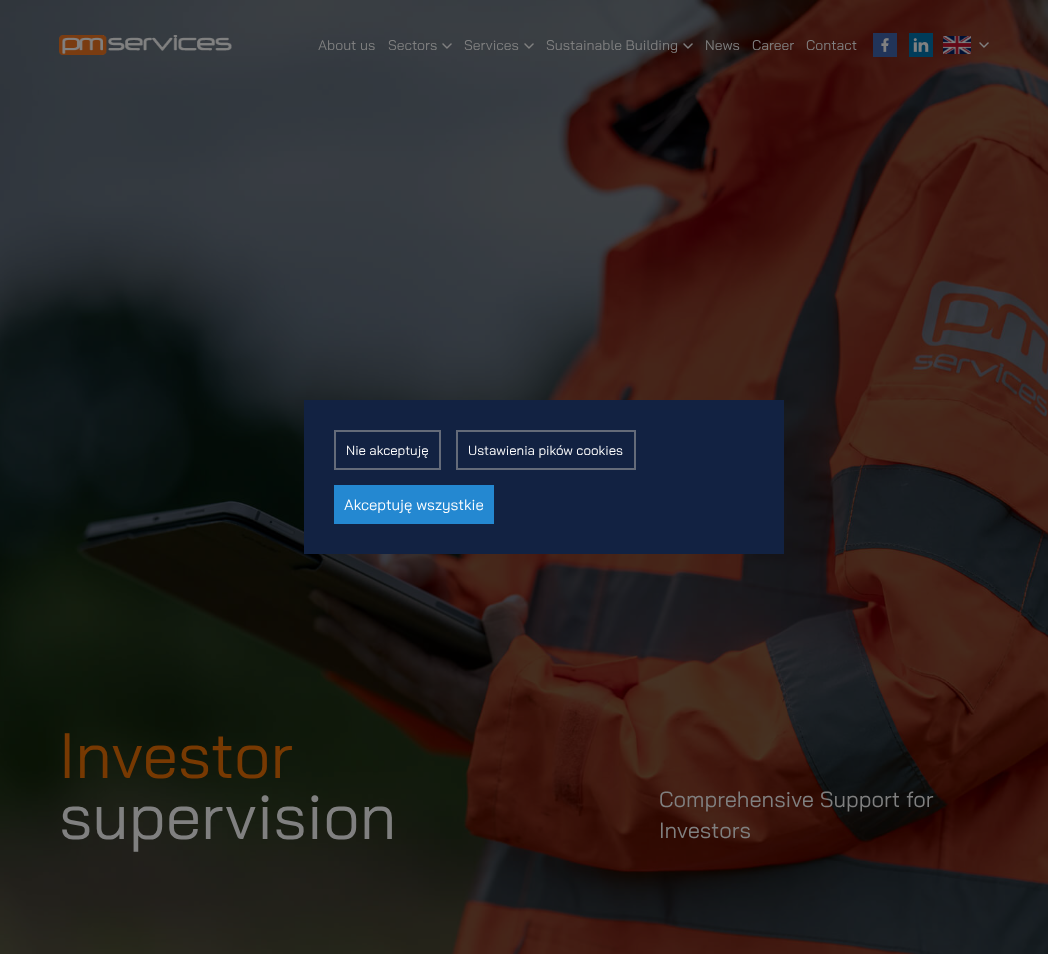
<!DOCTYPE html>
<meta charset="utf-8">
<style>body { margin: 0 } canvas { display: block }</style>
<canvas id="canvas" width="1048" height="954"></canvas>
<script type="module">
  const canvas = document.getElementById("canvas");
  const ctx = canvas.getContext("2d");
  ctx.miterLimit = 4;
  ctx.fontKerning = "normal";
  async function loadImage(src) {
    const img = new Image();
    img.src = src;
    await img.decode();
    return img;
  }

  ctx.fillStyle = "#ffffff";
  ctx.fillRect(0, 0, 1048, 954);
  ctx.drawImage(await loadImage("img9.png"), 0, 0, 1048, 954);
  ctx.drawImage(await loadImage("img1.png"), 59, 35, 173, 20);
  ctx.font = "14px Bai Jamjuree";
  ctx.fillStyle = "#808080";
  ctx.fillText("About us", 318, 50);
  ctx.fillText("Sectors", 388, 50);
  ctx.drawImage(await loadImage("img2.png"), 442, 43, 10, 6);
  ctx.fillText("Services", 464, 50);
  ctx.drawImage(await loadImage("img3.png"), 524, 43, 10, 6);
  ctx.fillText("Sustainable Building", 546, 50);
  ctx.drawImage(await loadImage("img4.png"), 683, 43, 10, 6);
  ctx.fillText("News", 705, 50);
  ctx.fillText("Career", 752, 50);
  ctx.fillText("Contact", 806, 50);
  ctx.drawImage(await loadImage("img5.png"), 873, 33, 24, 24);
  ctx.drawImage(await loadImage("img6.png"), 909, 33, 24, 24);
  ctx.drawImage(await loadImage("img7.png"), 943, 36, 28, 18);
  ctx.drawImage(await loadImage("img8.png"), 979, 42, 10, 6);
  ctx.fillStyle = "#122242";
  ctx.fillRect(304, 400, 480, 154);
  ctx.strokeStyle = "#646b79";
  ctx.lineWidth = 2;
  ctx.strokeRect(335, 431, 105, 38);
  ctx.font = "13.25px Bai Jamjuree";
  ctx.fillStyle = "#ffffff";
  ctx.fillText("Nie akceptuję", 346, 455);
  ctx.strokeRect(457, 431, 178, 38);
  ctx.fillText("Ustawienia pików cookies", 468, 455);
  ctx.fillStyle = "#2488d1";
  ctx.fillRect(334, 485, 160, 39);
  ctx.font = "15px Bai Jamjuree";
  ctx.fillStyle = "#ffffff";
  ctx.fillText("Akceptuję wszystkie", 344, 510);
  ctx.font = "64px Bai Jamjuree";
  ctx.fillStyle = "#773902";
  ctx.fillText("Investor", 59, 778);
  ctx.fillStyle = "#808080";
  ctx.fillText("supervision", 59, 839);
  ctx.font = "22px Bai Jamjuree";
  ctx.fillText("Comprehensive Support for", 659, 807);
  ctx.fillText("Investors", 659, 838);
</script>
